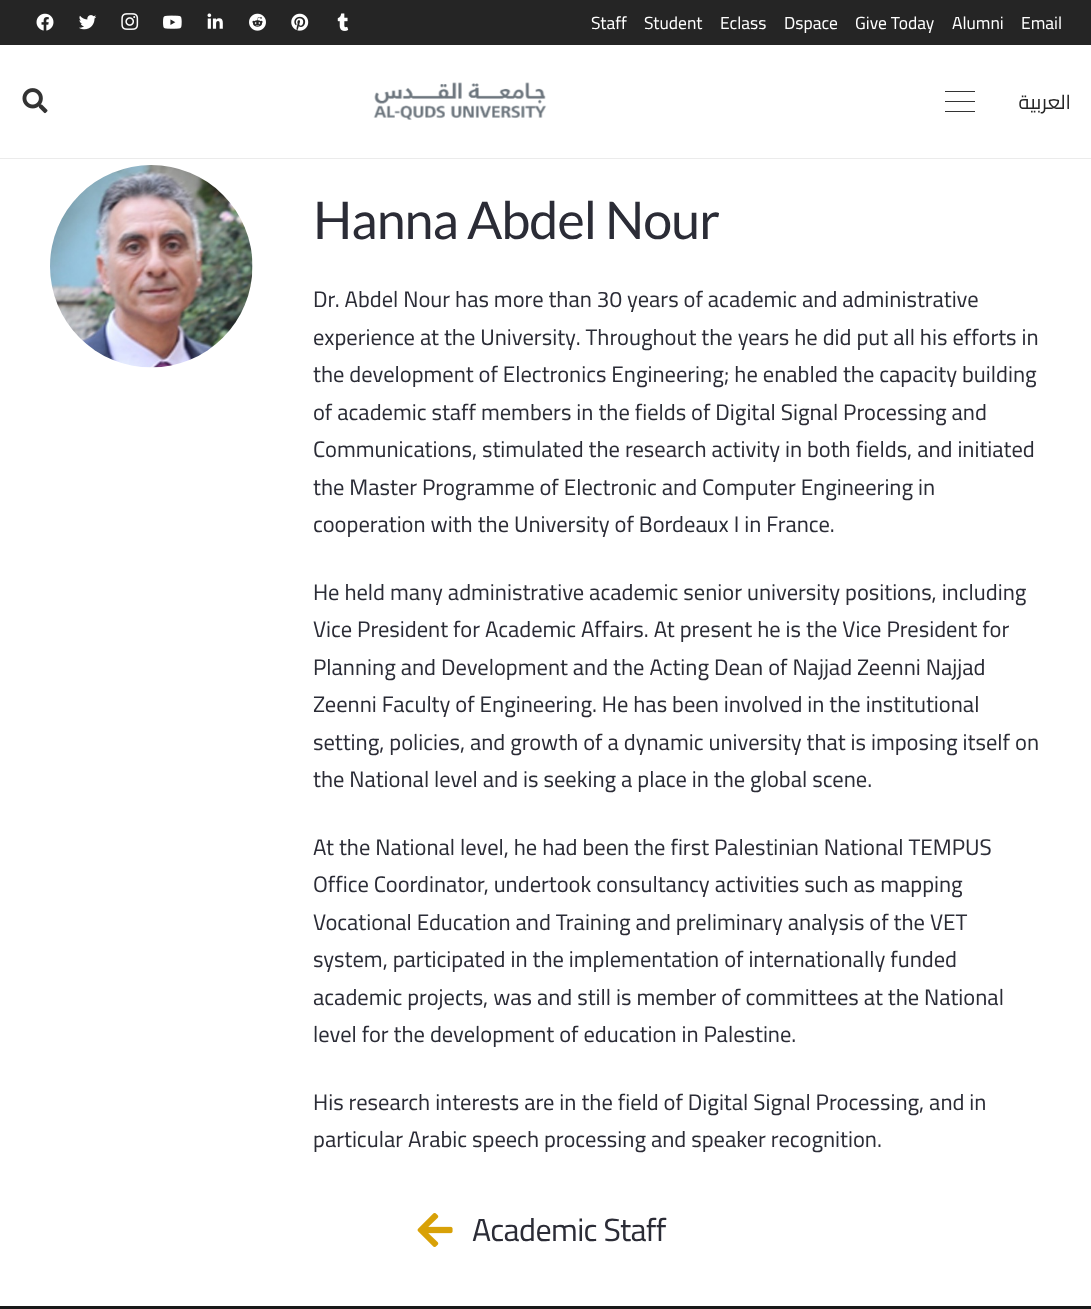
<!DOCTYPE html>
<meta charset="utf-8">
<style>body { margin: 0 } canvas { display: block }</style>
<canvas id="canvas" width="1091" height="1309"></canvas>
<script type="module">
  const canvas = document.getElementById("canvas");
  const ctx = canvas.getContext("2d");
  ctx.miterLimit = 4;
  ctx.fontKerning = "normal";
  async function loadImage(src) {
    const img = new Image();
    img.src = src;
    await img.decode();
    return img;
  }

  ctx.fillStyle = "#ffffff";
  ctx.fillRect(0, 0, 1091, 1309);
  ctx.fillStyle = "#252525";
  ctx.fillRect(0, 0, 1091, 45);
  ctx.drawImage(await loadImage("img1.png"), 36, 13, 18, 18);
  ctx.drawImage(await loadImage("img2.png"), 79, 15, 18, 15);
  ctx.drawImage(await loadImage("img3.png"), 121, 13, 18, 17);
  ctx.drawImage(await loadImage("img4.png"), 163, 15, 19, 14);
  ctx.drawImage(await loadImage("img5.png"), 207, 13, 16, 16);
  ctx.drawImage(await loadImage("img6.png"), 249, 13, 17, 18);
  ctx.drawImage(await loadImage("img7.png"), 291, 13, 18, 18);
  ctx.drawImage(await loadImage("img8.png"), 337, 13, 12, 18);
  ctx.font = "17.5px Cairo";
  ctx.fillStyle = "#ffffff";
  ctx.fillText("Staff", 591, 29);
  ctx.fillText("Student", 644, 29);
  ctx.fillText("Eclass", 720, 29);
  ctx.fillText("Dspace", 784, 29);
  ctx.fillText("Give Today", 855, 29);
  ctx.fillText("Alumni", 952, 29);
  ctx.fillText("Email", 1021, 29);
  ctx.fillStyle = "#ebebeb";
  ctx.fillRect(0, 158, 1091, 1);
  ctx.drawImage(await loadImage("img9.png"), 22, 88, 26, 26);
  ctx.drawImage(await loadImage("img10.png"), 373, 82, 174, 38);
  ctx.fillStyle = "#333333";
  ctx.fillRect(945, 101, 30, 1);
  ctx.fillRect(945, 91, 30, 1);
  ctx.fillRect(945, 111, 30, 1);
  ctx.direction = "rtl";
  ctx.font = "20px Cairo";
  ctx.fillStyle = "#252525";
  ctx.fillText("العربية", 1071, 109);
  ctx.drawImage(await loadImage("img11.png"), 50, 165, 203, 203);
  ctx.letterSpacing = "-1px";
  ctx.direction = "ltr";
  ctx.font = "52px Lato";
  ctx.fillStyle = "#2b2c36";
  ctx.fillText("Hanna Abdel Nour", 313, 239);
  ctx.letterSpacing = "0px";
  ctx.font = "22.5px Cairo";
  ctx.fillText("Dr. Abdel Nour has more than 30 years of academic and administrative", 313, 307);
  ctx.fillText("experience at the University. Throughout the years he did put all his efforts in", 313, 345);
  ctx.fillText("the development of Electronics Engineering; he enabled the capacity building", 313, 382);
  ctx.fillText("of academic staff members in the fields of Digital Signal Processing and", 313, 420);
  ctx.fillText("Communications, stimulated the research activity in both fields, and initiated", 313, 457);
  ctx.fillText("the Master Programme of Electronic and Computer Engineering in", 313, 495);
  ctx.fillText("cooperation with the University of Bordeaux I in France.", 313, 532);
  ctx.fillText("He held many administrative academic senior university positions, including", 313, 600);
  ctx.fillText("Vice President for Academic Affairs. At present he is the Vice President for", 313, 637);
  ctx.fillText("Planning and Development and the Acting Dean of Najjad Zeenni Najjad", 313, 675);
  ctx.fillText("Zeenni Faculty of Engineering. He has been involved in the institutional", 313, 712);
  ctx.fillText("setting, policies, and growth of a dynamic university that is imposing itself on", 313, 750);
  ctx.fillText("the National level and is seeking a place in the global scene.", 313, 787);
  ctx.fillText("At the National level, he had been the first Palestinian National TEMPUS", 313, 855);
  ctx.fillText("Office Coordinator, undertook consultancy activities such as mapping", 313, 892);
  ctx.fillText("Vocational Education and Training and preliminary analysis of the VET", 313, 930);
  ctx.fillText("system, participated in the implementation of internationally funded", 313, 967);
  ctx.fillText("academic projects, was and still is member of committees at the National", 313, 1005);
  ctx.fillText("level for the development of education in Palestine.", 313, 1042);
  ctx.fillText("His research interests are in the field of Digital Signal Processing, and in", 313, 1110);
  ctx.fillText("particular Arabic speech processing and speaker recognition.", 313, 1147);
  ctx.drawImage(await loadImage("img12.png"), 417, 1213, 36, 34);
  ctx.letterSpacing = "-0.6px";
  ctx.font = "32px Cairo";
  ctx.fillText("Academic Staff", 472, 1241);
  ctx.fillStyle = "#181818";
  ctx.fillRect(0, 1306, 1091, 3);
</script>
